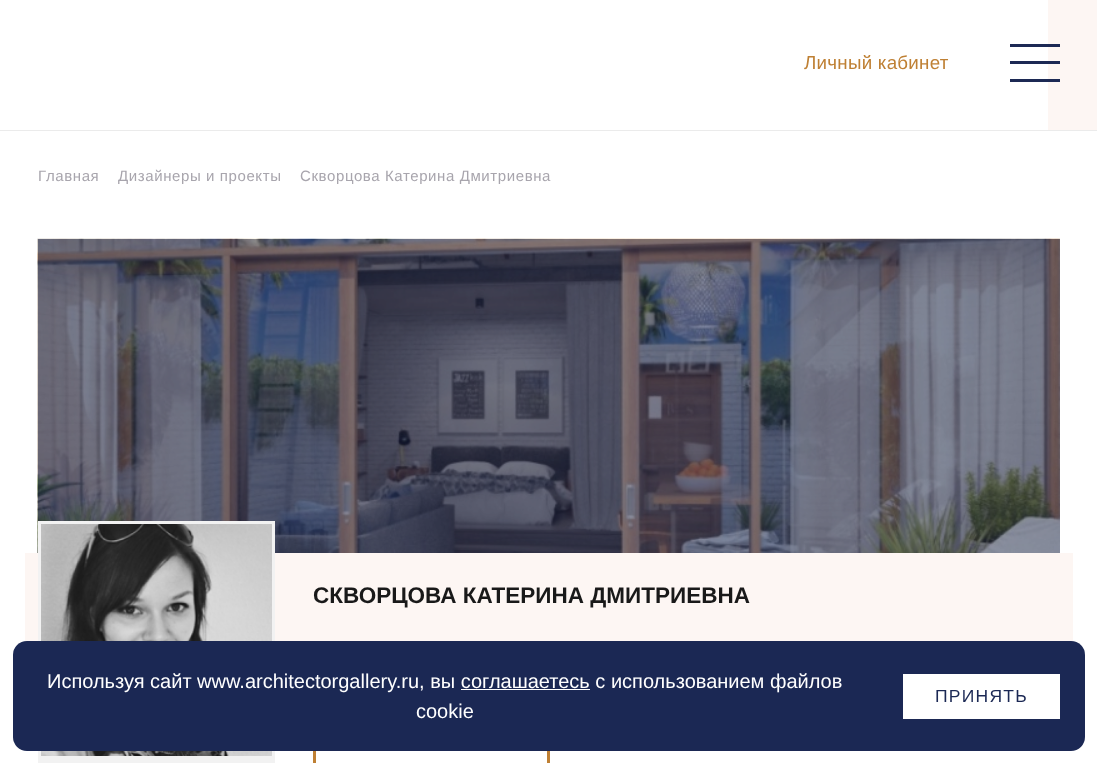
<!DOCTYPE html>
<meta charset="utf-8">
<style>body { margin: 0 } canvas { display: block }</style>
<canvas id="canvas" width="1097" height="763"></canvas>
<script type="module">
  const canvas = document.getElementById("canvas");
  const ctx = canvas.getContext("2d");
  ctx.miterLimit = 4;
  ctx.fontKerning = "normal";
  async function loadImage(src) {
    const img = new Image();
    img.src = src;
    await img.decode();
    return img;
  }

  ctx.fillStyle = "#ffffff";
  ctx.fillRect(0, 0, 1097, 763);
  ctx.fillStyle = "#ebebeb";
  ctx.fillRect(0, 130, 1097, 1);
  ctx.letterSpacing = "0.25px";
  ctx.font = "18.75px Liberation Sans";
  ctx.fillStyle = "#bf8034";
  ctx.fillText("Личный кабинет", 804, 69);
  ctx.fillStyle = "#fdf6f3";
  ctx.fillRect(1048, 0, 49, 130);
  ctx.fillStyle = "#1c2954";
  ctx.fillRect(1010, 44, 50, 3);
  ctx.fillRect(1010, 61, 50, 3);
  ctx.fillRect(1010, 79, 50, 3);
  ctx.letterSpacing = "0.6px";
  ctx.font = "15px Liberation Sans";
  ctx.fillStyle = "#a8a5ad";
  ctx.fillText("Главная", 38, 181);
  ctx.fillText("Дизайнеры и проекты", 118, 181);
  ctx.fillText("Скворцова Катерина Дмитриевна", 300, 181);
  ctx.drawImage(await loadImage("img1.png"), 37, 238, 1023, 315);
  ctx.fillStyle = "#fdf6f3";
  ctx.fillRect(25, 553, 1048, 89);
  ctx.drawImage(await loadImage("img2.png"), 41, 524, 231, 232);
  ctx.strokeStyle = "#f2f2f2";
  ctx.lineWidth = 3;
  ctx.strokeRect(39.5, 522.5, 234, 235);
  ctx.fillStyle = "#f2f2f2";
  ctx.fillRect(38, 759, 237, 4);
  ctx.letterSpacing = "0px";
  ctx.font = "bold 22.5px Liberation Sans";
  ctx.fillStyle = "#191919";
  ctx.fillText("СКВОРЦОВА КАТЕРИНА ДМИТРИЕВНА", 313, 603);
  ctx.strokeStyle = "#bf8034";
  ctx.strokeRect(314.5, 717.5, 234, 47);
  ctx.fillStyle = "#1b2854";
  ctx.beginPath();
  ctx.roundRect(13, 641, 1072, 110, 14);
  ctx.fill();
  ctx.font = "20px Liberation Sans";
  ctx.fillStyle = "#ffffff";
  ctx.fillText("Используя сайт www.architectorgallery.ru, вы соглашаетесь с использованием файлов", 47, 688);
  ctx.fillRect(461, 689, 129, 1);
  ctx.fillText("cookie", 416, 718);
  ctx.fillRect(903, 674, 157, 45);
  ctx.letterSpacing = "1.25px";
  ctx.font = "17.5px Liberation Sans";
  ctx.fillStyle = "#1b2854";
  ctx.fillText("ПРИНЯТЬ", 935, 702);
</script>
